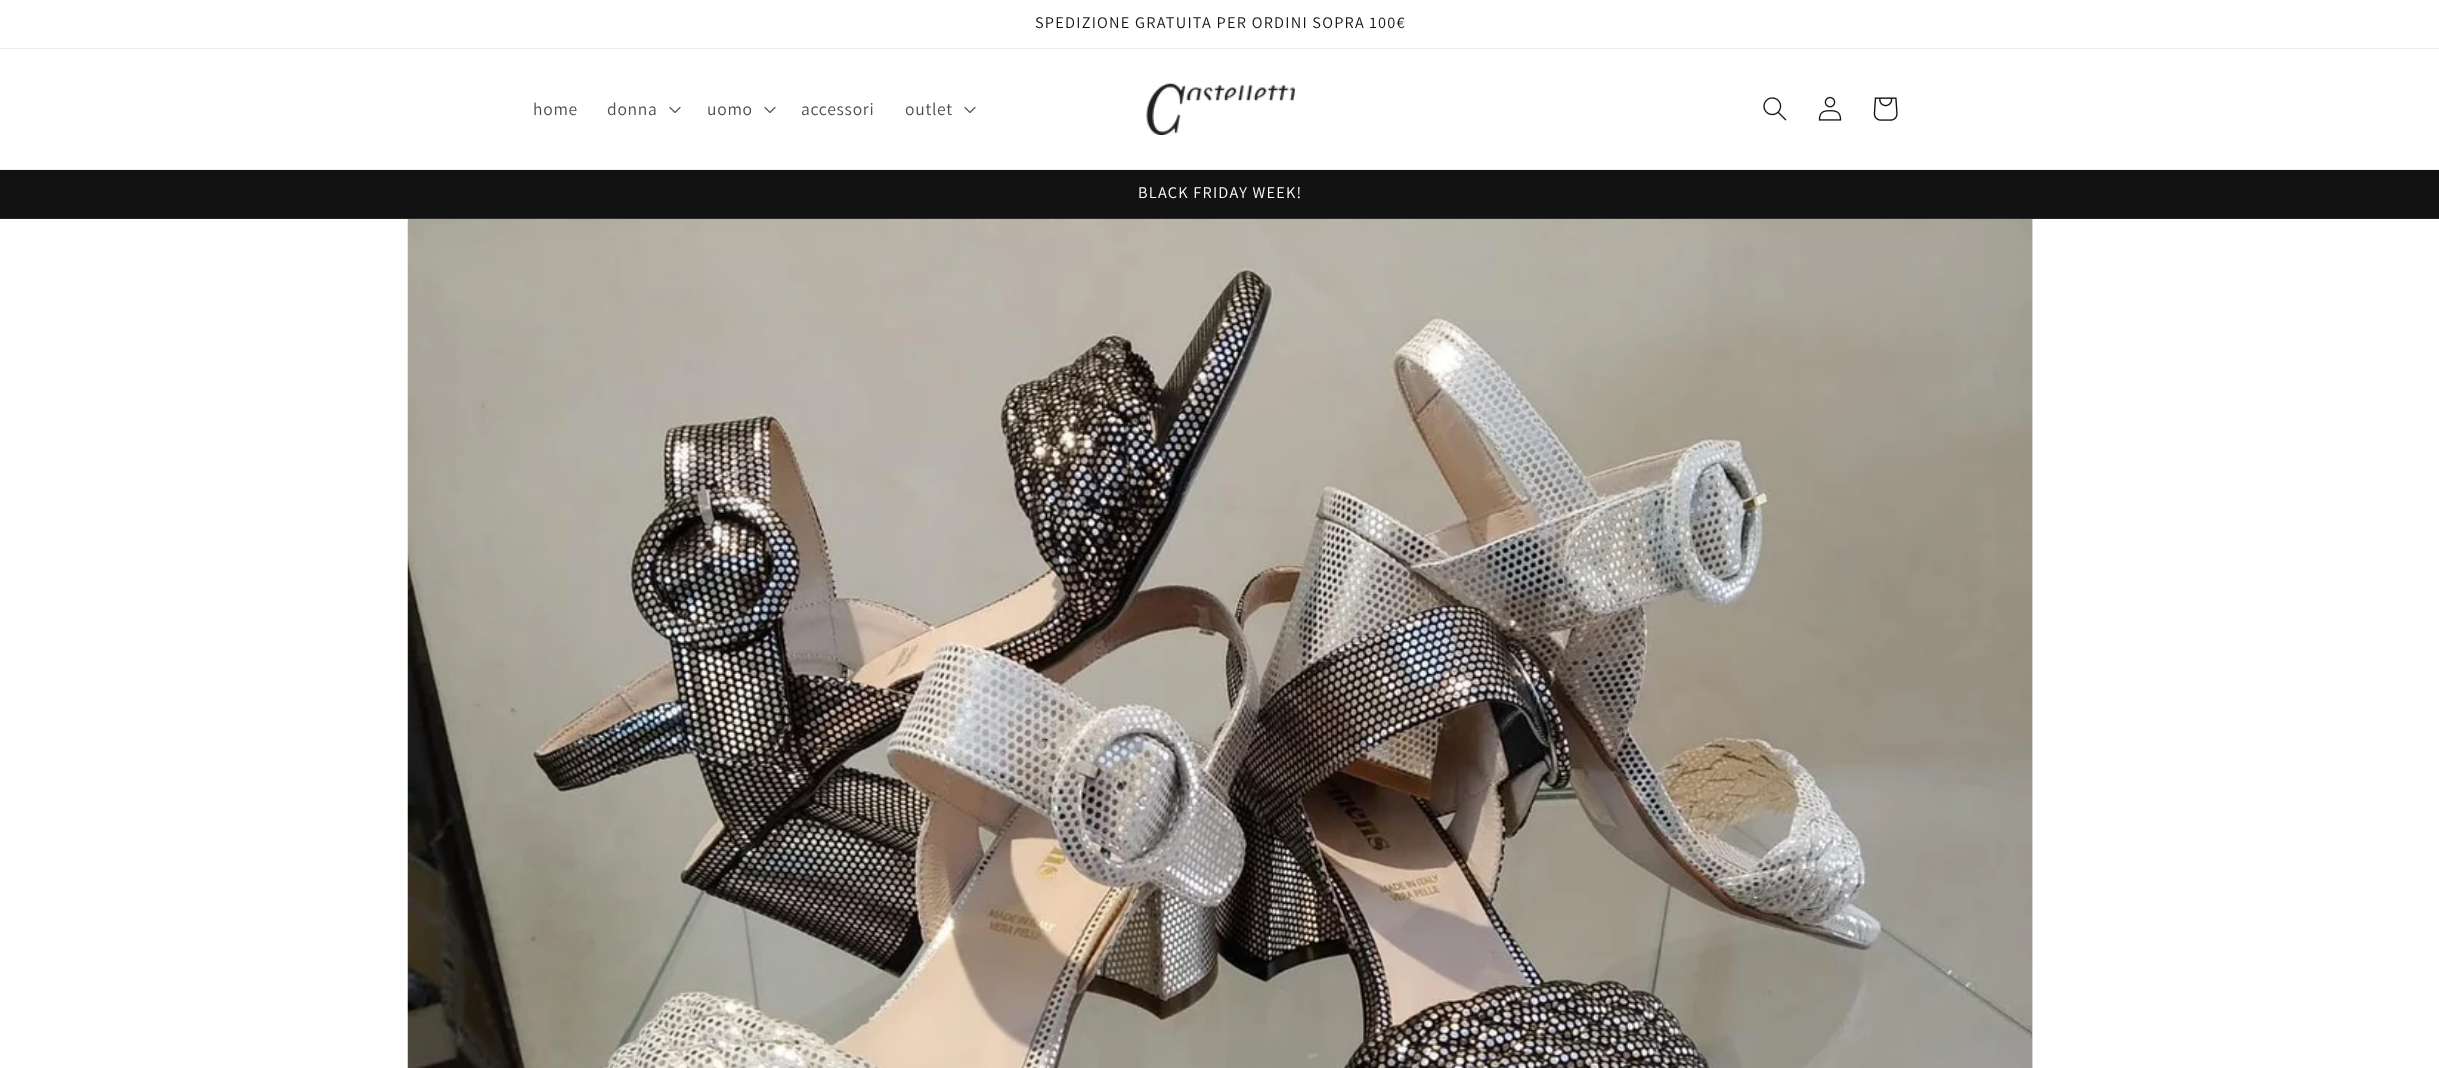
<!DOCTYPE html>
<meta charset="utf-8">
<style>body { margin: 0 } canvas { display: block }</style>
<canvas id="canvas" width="2439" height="1068"></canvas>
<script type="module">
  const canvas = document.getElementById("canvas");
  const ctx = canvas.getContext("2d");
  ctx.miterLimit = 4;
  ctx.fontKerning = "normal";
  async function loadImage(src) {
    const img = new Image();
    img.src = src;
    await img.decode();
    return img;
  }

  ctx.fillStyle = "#ffffff";
  ctx.fillRect(0, 0, 2439, 1068);
  ctx.fillStyle = "#ececec";
  ctx.fillRect(0, 48, 2439, 1);
  ctx.letterSpacing = "1.25px";
  ctx.font = "16.25px Assistant";
  ctx.fillStyle = "#121212";
  ctx.fillText("SPEDIZIONE GRATUITA PER ORDINI SOPRA 100€", 1035, 28);
  ctx.fillStyle = "#ececec";
  ctx.fillRect(0, 169, 2439, 1);
  ctx.letterSpacing = "0.75px";
  ctx.font = "17.5px Assistant";
  ctx.fillStyle = "#4d4d4d";
  ctx.fillText("home", 533, 115);
  ctx.fillText("donna", 607, 115);
  ctx.drawImage(await loadImage("img1.png"), 669, 107, 12, 6);
  ctx.fillText("uomo", 707, 115);
  ctx.drawImage(await loadImage("img1.png"), 764, 107, 12, 6);
  ctx.fillText("accessori", 801, 115);
  ctx.fillText("outlet", 905, 115);
  ctx.drawImage(await loadImage("img1.png"), 964, 107, 12, 6);
  ctx.drawImage(await loadImage("img2.png"), 1146, 83, 149, 52);
  ctx.drawImage(await loadImage("img3.png"), 1763, 97, 24, 24);
  ctx.drawImage(await loadImage("img4.png"), 1818, 96, 24, 25);
  ctx.drawImage(await loadImage("img5.png"), 1873, 97, 25, 24);
  ctx.fillStyle = "#121212";
  ctx.fillRect(0, 170, 2439, 48);
  ctx.fillStyle = "#252525";
  ctx.fillRect(0, 218, 2439, 1);
  ctx.letterSpacing = "1.25px";
  ctx.font = "16.25px Assistant";
  ctx.fillStyle = "#ffffff";
  ctx.fillText("BLACK FRIDAY WEEK!", 1138, 198);
  ctx.fillStyle = "#e8e8e8";
  ctx.fillRect(2032, 219, 1, 849);
  ctx.drawImage(await loadImage("img6.png"), 407, 218, 1626, 850);
</script>
